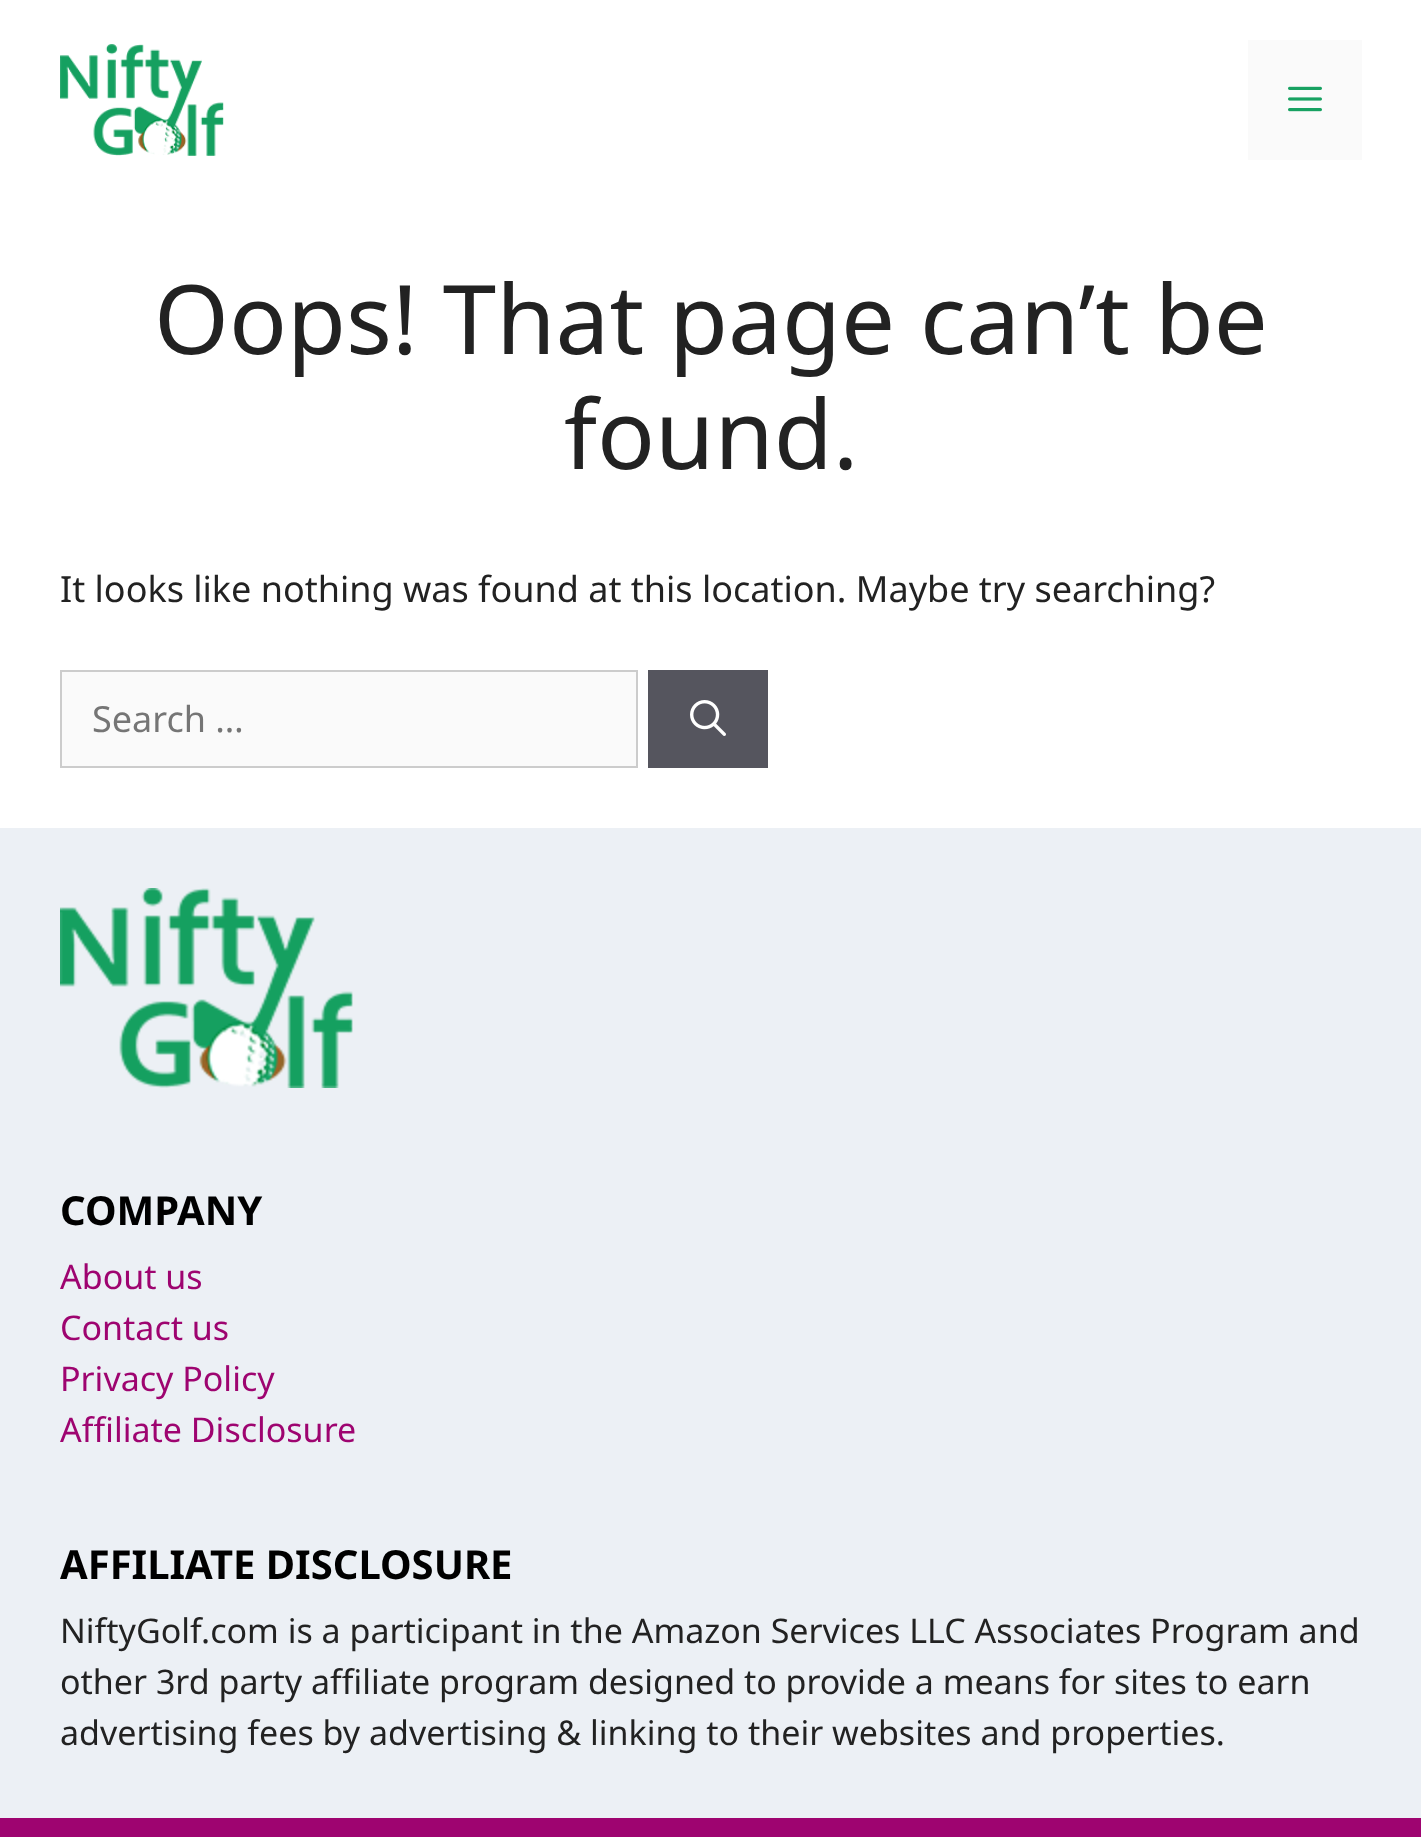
<!DOCTYPE html>
<meta charset="utf-8">
<style>body { margin: 0 } canvas { display: block }</style>
<canvas id="canvas" width="1421" height="1837"></canvas>
<script type="module">
  const canvas = document.getElementById("canvas");
  const ctx = canvas.getContext("2d");
  ctx.miterLimit = 4;
  ctx.fontKerning = "normal";
  async function loadImage(src) {
    const img = new Image();
    img.src = src;
    await img.decode();
    return img;
  }

  ctx.fillStyle = "#ffffff";
  ctx.fillRect(0, 0, 1421, 1837);
  ctx.drawImage(await loadImage("img1.png"), 60, 44, 164, 112);
  ctx.fillStyle = "#fafafa";
  ctx.fillRect(1248, 40, 114, 120);
  ctx.drawImage(await loadImage("img2.png"), 1288, 86, 34, 26);
  ctx.font = "96px Noto Sans";
  ctx.fillStyle = "#222222";
  ctx.fillText("Oops! That page can’t be", 154, 354);
  ctx.fillText("found.", 564, 469);
  ctx.font = "36px Noto Sans";
  ctx.fillText("It looks like nothing was found at this location. Maybe try searching?", 60, 602);
  ctx.fillStyle = "#fafafa";
  ctx.beginPath();
  ctx.rect(61, 671, 576, 96);
  ctx.fill();
  ctx.strokeStyle = "#cccccc";
  ctx.lineWidth = 2;
  ctx.stroke();
  ctx.fillStyle = "#757575";
  ctx.fillText("Search …", 92, 732);
  ctx.fillStyle = "#55555e";
  ctx.fillRect(648, 670, 120, 98);
  ctx.drawImage(await loadImage("img3.png"), 690, 700, 36, 36);
  ctx.fillStyle = "#ecf0f5";
  ctx.fillRect(0, 828, 1421, 990);
  ctx.drawImage(await loadImage("img4.png"), 60, 888, 293, 200);
  ctx.font = "bold 40px Noto Sans";
  ctx.fillStyle = "#000000";
  ctx.fillText("COMPANY", 60, 1225);
  ctx.font = "34px Noto Sans";
  ctx.fillStyle = "#9e0470";
  ctx.fillText("About us", 60, 1289);
  ctx.fillText("Contact us", 60, 1340);
  ctx.fillText("Privacy Policy", 60, 1391);
  ctx.fillText("Affiliate Disclosure", 60, 1442);
  ctx.font = "bold 40px Noto Sans";
  ctx.fillStyle = "#000000";
  ctx.fillText("AFFILIATE DISCLOSURE", 60, 1579);
  ctx.font = "34px Noto Sans";
  ctx.fillStyle = "#222222";
  ctx.fillText("NiftyGolf.com is a participant in the Amazon Services LLC Associates Program and", 60, 1643);
  ctx.fillText("other 3rd party affiliate program designed to provide a means for sites to earn", 60, 1694);
  ctx.fillText("advertising fees by advertising & linking to their websites and properties.", 60, 1745);
  ctx.fillStyle = "#9e0470";
  ctx.fillRect(0, 1818, 1421, 19);
</script>
